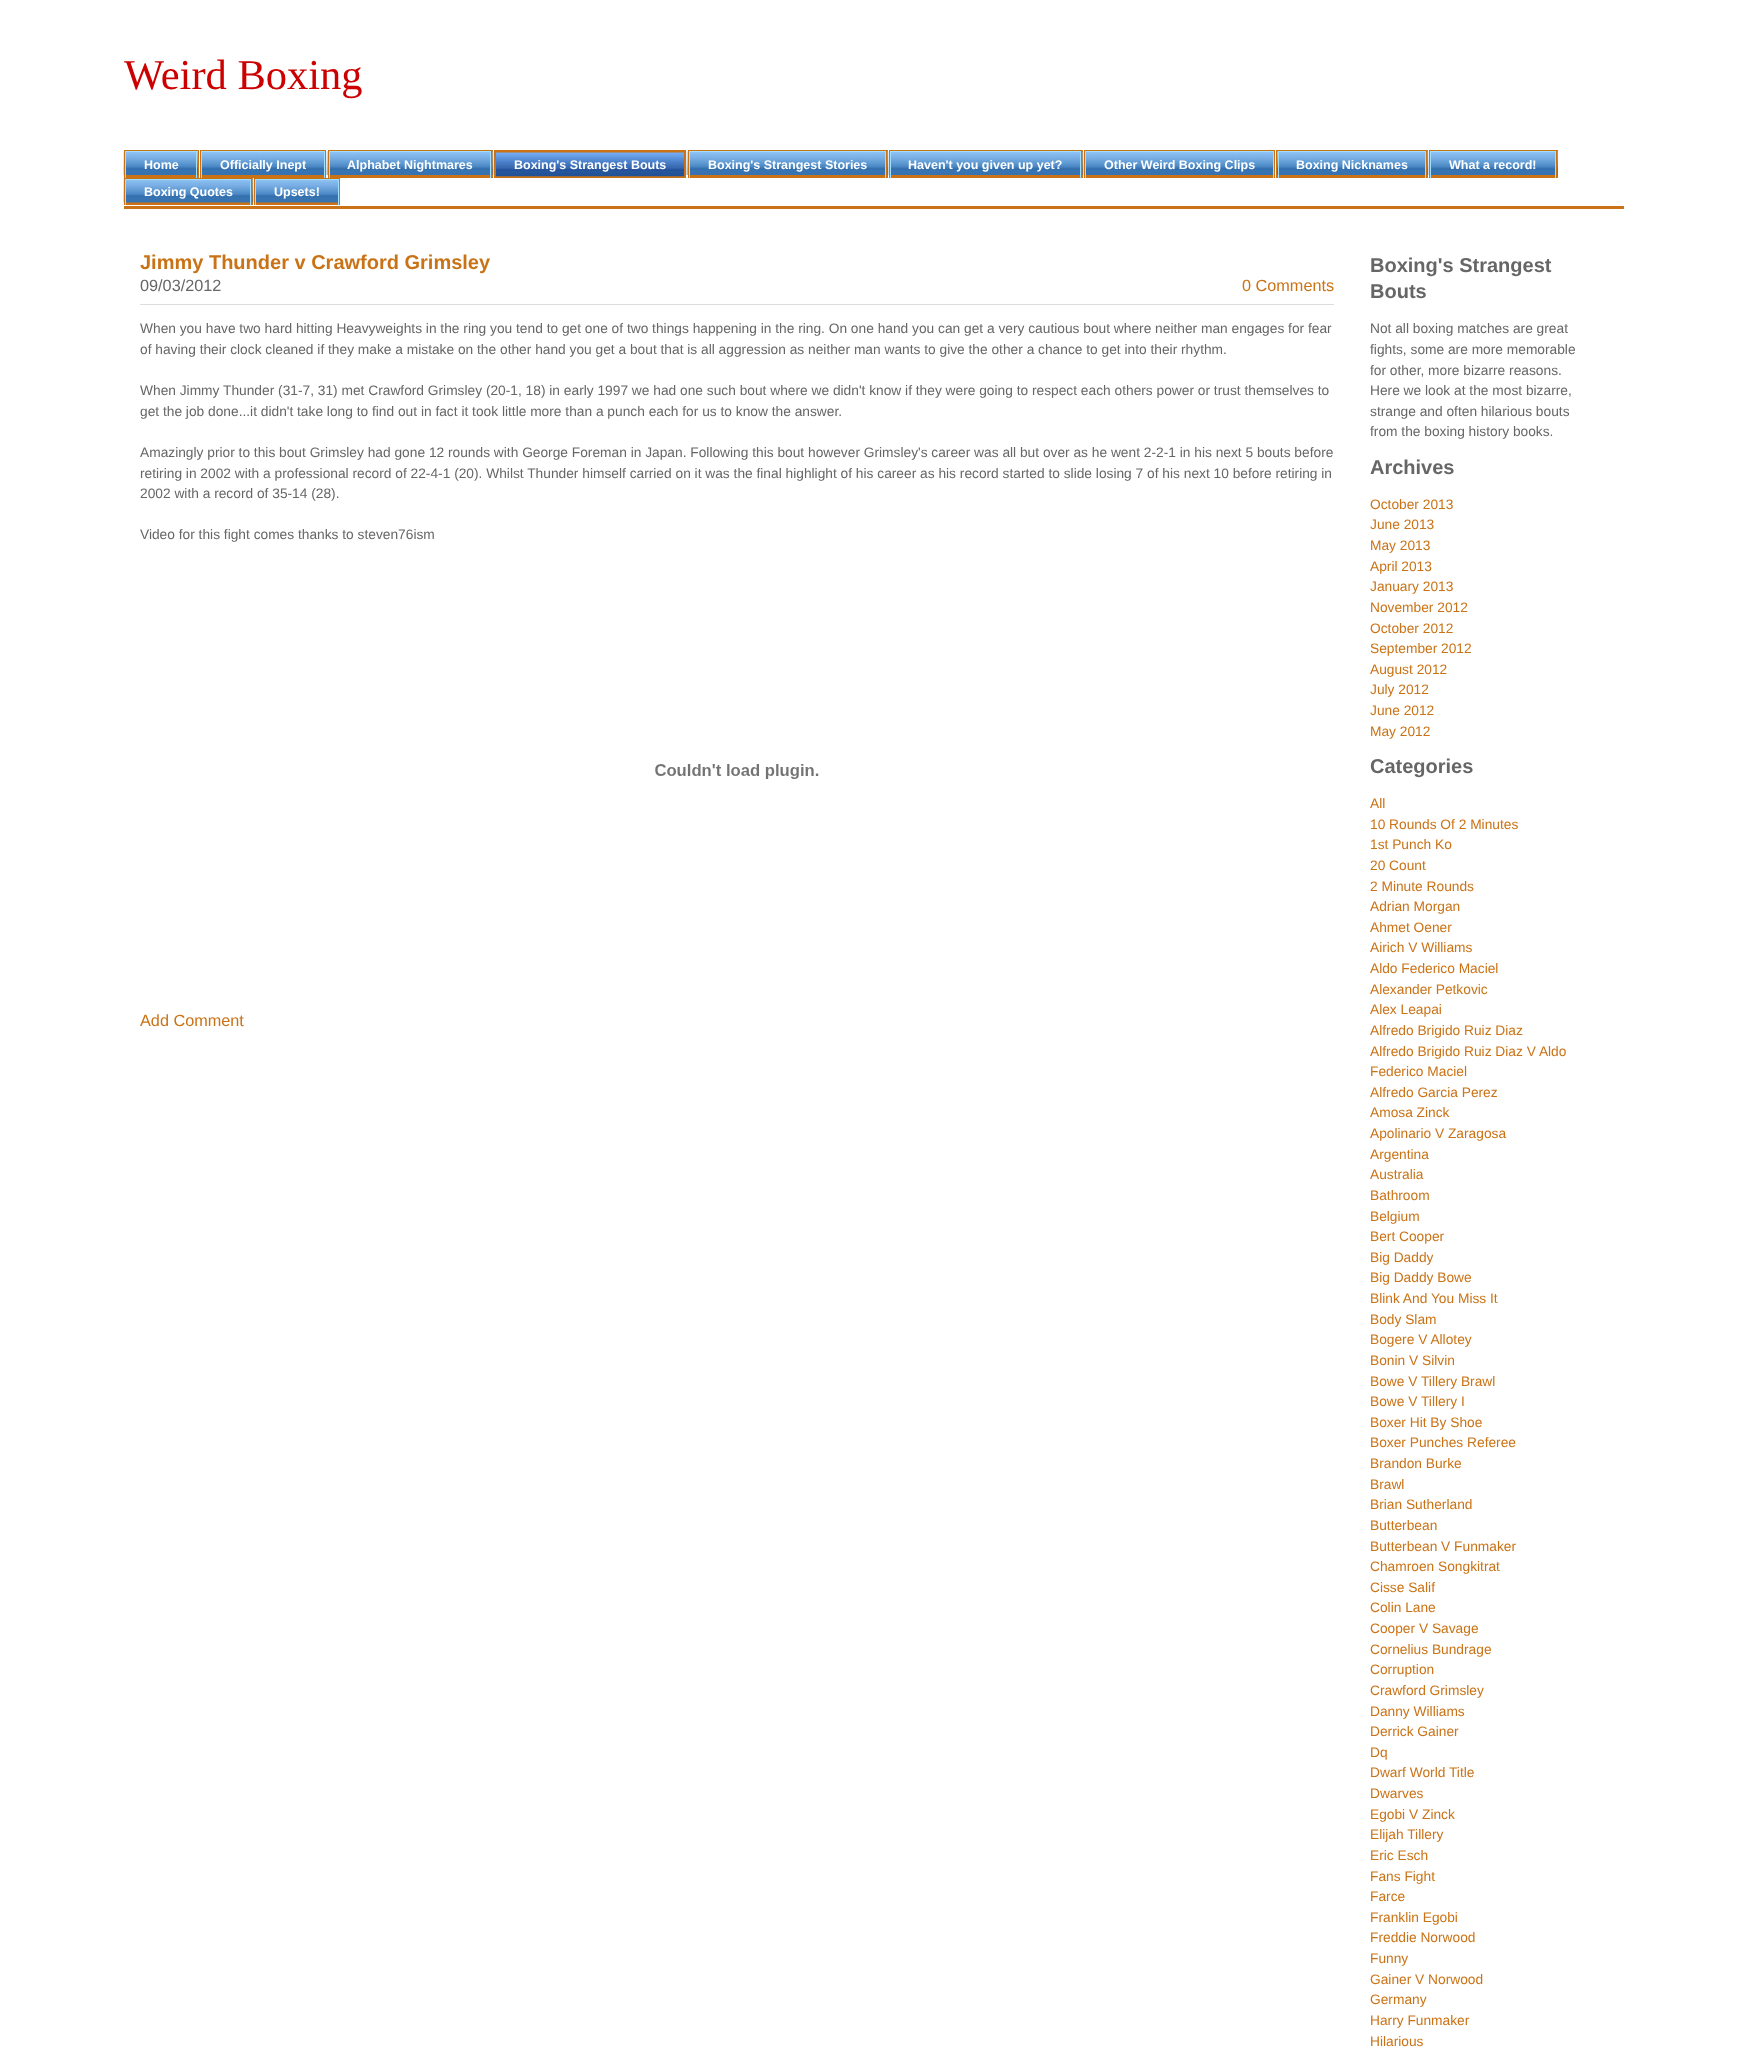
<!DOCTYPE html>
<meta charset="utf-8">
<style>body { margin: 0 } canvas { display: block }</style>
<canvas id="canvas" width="1747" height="2054"></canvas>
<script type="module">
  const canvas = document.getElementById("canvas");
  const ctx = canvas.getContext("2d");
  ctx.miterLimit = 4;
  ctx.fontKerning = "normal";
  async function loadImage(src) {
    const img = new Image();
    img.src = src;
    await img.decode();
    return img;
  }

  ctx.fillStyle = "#ffffff";
  ctx.fillRect(0, 0, 1747, 2054);
  ctx.font = "42.5px Liberation Serif";
  ctx.fillStyle = "#cc0000";
  ctx.fillText("Weird Boxing", 124, 89);
  ctx.fillStyle = "#ca7316";
  ctx.fillRect(124, 206, 1500, 3);
  ctx.fillRect(125, 150, 74, 28);
  ctx.drawImage(await loadImage("img1.png"), 123, 151, 75, 24);
  ctx.fillRect(124, 150, 1, 28);
  ctx.fillStyle = "#a2defe";
  ctx.fillRect(125, 151, 73, 1);
  ctx.fillRect(196, 151, 1, 27);
  ctx.fillRect(125, 151, 1, 27);
  ctx.font = "bold 12.5px Liberation Sans";
  ctx.fillStyle = "#ffffff";
  ctx.fillText("Home", 144, 169);
  ctx.fillStyle = "#ca7316";
  ctx.fillRect(200, 150, 125, 28);
  ctx.drawImage(await loadImage("img2.png"), 202, 151, 125, 24);
  ctx.fillRect(325, 150, 1, 28);
  ctx.fillStyle = "#a2defe";
  ctx.fillRect(201, 151, 124, 1);
  ctx.fillRect(324, 151, 1, 27);
  ctx.fillRect(201, 151, 1, 27);
  ctx.fillStyle = "#ffffff";
  ctx.fillText("Officially Inept", 220, 169);
  ctx.fillStyle = "#ca7316";
  ctx.fillRect(329, 150, 164, 28);
  ctx.drawImage(await loadImage("img3.png"), 327, 151, 166, 24);
  ctx.fillRect(491, 150, 1, 28);
  ctx.fillRect(328, 150, 1, 28);
  ctx.fillStyle = "#a2defe";
  ctx.fillRect(329, 151, 162, 1);
  ctx.fillRect(490, 151, 1, 27);
  ctx.fillRect(329, 151, 1, 27);
  ctx.fillStyle = "#ffffff";
  ctx.fillText("Alphabet Nightmares", 347, 169);
  ctx.fillStyle = "#ca7316";
  ctx.fillRect(495, 150, 190, 1);
  ctx.drawImage(await loadImage("img4.png"), 493, 151, 194, 24);
  ctx.fillRect(685, 150, 1, 28);
  ctx.fillRect(494, 150, 1, 28);
  ctx.fillRect(495, 151, 190, 27);
  ctx.drawImage(await loadImage("img5.png"), 496, 152, 188, 25);
  ctx.fillStyle = "#ffffff";
  ctx.fillText("Boxing's Strangest Bouts", 514, 169);
  ctx.fillStyle = "#ca7316";
  ctx.fillRect(689, 150, 199, 28);
  ctx.drawImage(await loadImage("img6.png"), 687, 151, 201, 24);
  ctx.fillRect(886, 150, 1, 28);
  ctx.fillRect(688, 150, 1, 28);
  ctx.fillStyle = "#a2defe";
  ctx.fillRect(689, 151, 197, 1);
  ctx.fillRect(885, 151, 1, 27);
  ctx.fillRect(689, 151, 1, 27);
  ctx.fillStyle = "#ffffff";
  ctx.fillText("Boxing's Strangest Stories", 708, 169);
  ctx.fillStyle = "#ca7316";
  ctx.fillRect(890, 150, 193, 28);
  ctx.drawImage(await loadImage("img7.png"), 888, 151, 195, 24);
  ctx.fillRect(1081, 150, 1, 28);
  ctx.fillRect(889, 150, 1, 28);
  ctx.fillStyle = "#a2defe";
  ctx.fillRect(890, 151, 191, 1);
  ctx.fillRect(1080, 151, 1, 27);
  ctx.fillRect(890, 151, 1, 27);
  ctx.fillStyle = "#ffffff";
  ctx.fillText("Haven't you given up yet?", 908, 169);
  ctx.fillStyle = "#ca7316";
  ctx.fillRect(1085, 150, 190, 28);
  ctx.drawImage(await loadImage("img8.png"), 1083, 151, 190, 24);
  ctx.fillRect(1084, 150, 1, 28);
  ctx.fillStyle = "#a2defe";
  ctx.fillRect(1085, 151, 189, 1);
  ctx.fillRect(1273, 151, 1, 27);
  ctx.fillRect(1085, 151, 1, 27);
  ctx.fillStyle = "#ffffff";
  ctx.fillText("Other Weird Boxing Clips", 1104, 169);
  ctx.fillStyle = "#ca7316";
  ctx.fillRect(1276, 150, 152, 28);
  ctx.drawImage(await loadImage("img9.png"), 1277, 151, 151, 24);
  ctx.fillRect(1426, 150, 1, 28);
  ctx.fillStyle = "#a2defe";
  ctx.fillRect(1278, 151, 148, 1);
  ctx.fillRect(1425, 151, 1, 27);
  ctx.fillRect(1278, 151, 1, 27);
  ctx.fillStyle = "#ffffff";
  ctx.fillText("Boxing Nicknames", 1296, 169);
  ctx.fillStyle = "#ca7316";
  ctx.fillRect(1430, 150, 128, 28);
  ctx.drawImage(await loadImage("img10.png"), 1428, 151, 130, 24);
  ctx.fillRect(1556, 150, 1, 28);
  ctx.fillRect(1429, 150, 1, 28);
  ctx.fillStyle = "#a2defe";
  ctx.fillRect(1430, 151, 126, 1);
  ctx.fillRect(1555, 151, 1, 27);
  ctx.fillRect(1430, 151, 1, 27);
  ctx.fillStyle = "#ffffff";
  ctx.fillText("What a record!", 1449, 169);
  ctx.fillStyle = "#ca7316";
  ctx.fillRect(126, 179, 127, 26);
  ctx.drawImage(await loadImage("img11.png"), 123, 178, 130, 25);
  ctx.fillRect(124, 178, 129, 1);
  ctx.fillRect(251, 178, 1, 27);
  ctx.fillRect(124, 178, 1, 27);
  ctx.fillStyle = "#a2defe";
  ctx.fillRect(125, 179, 126, 1);
  ctx.fillRect(250, 179, 1, 26);
  ctx.fillRect(125, 179, 1, 26);
  ctx.fillStyle = "#ffffff";
  ctx.fillText("Boxing Quotes", 144, 196);
  ctx.fillStyle = "#ca7316";
  ctx.fillRect(256, 202, 82, 3);
  ctx.drawImage(await loadImage("img12.png"), 253, 178, 85, 25);
  ctx.fillRect(254, 178, 86, 1);
  ctx.fillRect(339, 178, 1, 27);
  ctx.fillRect(254, 178, 1, 27);
  ctx.fillStyle = "#a2defe";
  ctx.fillRect(255, 179, 84, 1);
  ctx.fillRect(338, 179, 1, 26);
  ctx.fillRect(255, 179, 1, 26);
  ctx.fillStyle = "#ffffff";
  ctx.fillText("Upsets!", 274, 196);
  ctx.font = "bold 20px Liberation Sans";
  ctx.fillStyle = "#ca7316";
  ctx.fillText("Jimmy Thunder v Crawford Grimsley", 140, 269);
  ctx.font = "16.25px Liberation Sans";
  ctx.fillStyle = "#666666";
  ctx.fillText("09/03/2012", 140, 291);
  ctx.fillStyle = "#ca7316";
  ctx.fillText("0 Comments", 1242, 291);
  ctx.fillStyle = "#dddddd";
  ctx.fillRect(140, 304, 1194, 1);
  ctx.font = "13.75px Liberation Sans";
  ctx.fillStyle = "#666666";
  ctx.fillText("When you have two hard hitting Heavyweights in the ring you tend to get one of two things happening in the ring. On one hand you can get a very cautious bout where neither man engages for fear", 140, 333);
  ctx.fillText("of having their clock cleaned if they make a mistake on the other hand you get a bout that is all aggression as neither man wants to give the other a chance to get into their rhythm.", 140, 354);
  ctx.fillText("When Jimmy Thunder (31-7, 31) met Crawford Grimsley (20-1, 18) in early 1997 we had one such bout where we didn't know if they were going to respect each others power or trust themselves to", 140, 395);
  ctx.fillText("get the job done...it didn't take long to find out in fact it took little more than a punch each for us to know the answer.", 140, 416);
  ctx.fillText("Amazingly prior to this bout Grimsley had gone 12 rounds with George Foreman in Japan. Following this bout however Grimsley's career was all but over as he went 2-2-1 in his next 5 bouts before", 140, 457);
  ctx.fillText("retiring in 2002 with a professional record of 22-4-1 (20). Whilst Thunder himself carried on it was the final highlight of his career as his record started to slide losing 7 of his next 10 before retiring in", 140, 478);
  ctx.fillText("2002 with a record of 35-14 (28).", 140, 498);
  ctx.fillText("Video for this fight comes thanks to steven76ism", 140, 539);
  ctx.drawImage(await loadImage("img13.png"), 655, 764, 164, 15);
  ctx.font = "16.25px Liberation Sans";
  ctx.fillStyle = "#ca7316";
  ctx.fillText("Add Comment", 140, 1026);
  ctx.font = "bold 20px Liberation Sans";
  ctx.fillStyle = "#666666";
  ctx.fillText("Boxing's Strangest", 1370, 272);
  ctx.fillText("Bouts", 1370, 298);
  ctx.font = "13.75px Liberation Sans";
  ctx.fillText("Not all boxing matches are great", 1370, 333);
  ctx.fillText("fights, some are more memorable", 1370, 354);
  ctx.fillText("for other, more bizarre reasons.", 1370, 375);
  ctx.fillText("Here we look at the most bizarre,", 1370, 395);
  ctx.fillText("strange and often hilarious bouts", 1370, 416);
  ctx.fillText("from the boxing history books.", 1370, 436);
  ctx.font = "bold 20px Liberation Sans";
  ctx.fillText("Archives", 1370, 474);
  ctx.font = "13.75px Liberation Sans";
  ctx.fillStyle = "#ca7316";
  ctx.fillText("October 2013", 1370, 509);
  ctx.fillText("June 2013", 1370, 529);
  ctx.fillText("May 2013", 1370, 550);
  ctx.fillText("April 2013", 1370, 571);
  ctx.fillText("January 2013", 1370, 591);
  ctx.fillText("November 2012", 1370, 612);
  ctx.fillText("October 2012", 1370, 633);
  ctx.fillText("September 2012", 1370, 653);
  ctx.fillText("August 2012", 1370, 674);
  ctx.fillText("July 2012", 1370, 694);
  ctx.fillText("June 2012", 1370, 715);
  ctx.fillText("May 2012", 1370, 736);
  ctx.font = "bold 20px Liberation Sans";
  ctx.fillStyle = "#666666";
  ctx.fillText("Categories", 1370, 773);
  ctx.font = "13.75px Liberation Sans";
  ctx.fillStyle = "#ca7316";
  ctx.fillText("All", 1370, 808);
  ctx.fillText("10 Rounds Of 2 Minutes", 1370, 829);
  ctx.fillText("1st Punch Ko", 1370, 849);
  ctx.fillText("20 Count", 1370, 870);
  ctx.fillText("2 Minute Rounds", 1370, 891);
  ctx.fillText("Adrian Morgan", 1370, 911);
  ctx.fillText("Ahmet Oener", 1370, 932);
  ctx.fillText("Airich V Williams", 1370, 952);
  ctx.fillText("Aldo Federico Maciel", 1370, 973);
  ctx.fillText("Alexander Petkovic", 1370, 994);
  ctx.fillText("Alex Leapai", 1370, 1014);
  ctx.fillText("Alfredo Brigido Ruiz Diaz", 1370, 1035);
  ctx.fillText("Alfredo Brigido Ruiz Diaz V Aldo", 1370, 1056);
  ctx.fillText("Federico Maciel", 1370, 1076);
  ctx.fillText("Alfredo Garcia Perez", 1370, 1097);
  ctx.fillText("Amosa Zinck", 1370, 1117);
  ctx.fillText("Apolinario V Zaragosa", 1370, 1138);
  ctx.fillText("Argentina", 1370, 1159);
  ctx.fillText("Australia", 1370, 1179);
  ctx.fillText("Bathroom", 1370, 1200);
  ctx.fillText("Belgium", 1370, 1221);
  ctx.fillText("Bert Cooper", 1370, 1241);
  ctx.fillText("Big Daddy", 1370, 1262);
  ctx.fillText("Big Daddy Bowe", 1370, 1282);
  ctx.fillText("Blink And You Miss It", 1370, 1303);
  ctx.fillText("Body Slam", 1370, 1324);
  ctx.fillText("Bogere V Allotey", 1370, 1344);
  ctx.fillText("Bonin V Silvin", 1370, 1365);
  ctx.fillText("Bowe V Tillery Brawl", 1370, 1386);
  ctx.fillText("Bowe V Tillery I", 1370, 1406);
  ctx.fillText("Boxer Hit By Shoe", 1370, 1427);
  ctx.fillText("Boxer Punches Referee", 1370, 1447);
  ctx.fillText("Brandon Burke", 1370, 1468);
  ctx.fillText("Brawl", 1370, 1489);
  ctx.fillText("Brian Sutherland", 1370, 1509);
  ctx.fillText("Butterbean", 1370, 1530);
  ctx.fillText("Butterbean V Funmaker", 1370, 1551);
  ctx.fillText("Chamroen Songkitrat", 1370, 1571);
  ctx.fillText("Cisse Salif", 1370, 1592);
  ctx.fillText("Colin Lane", 1370, 1612);
  ctx.fillText("Cooper V Savage", 1370, 1633);
  ctx.fillText("Cornelius Bundrage", 1370, 1654);
  ctx.fillText("Corruption", 1370, 1674);
  ctx.fillText("Crawford Grimsley", 1370, 1695);
  ctx.fillText("Danny Williams", 1370, 1716);
  ctx.fillText("Derrick Gainer", 1370, 1736);
  ctx.fillText("Dq", 1370, 1757);
  ctx.fillText("Dwarf World Title", 1370, 1777);
  ctx.fillText("Dwarves", 1370, 1798);
  ctx.fillText("Egobi V Zinck", 1370, 1819);
  ctx.fillText("Elijah Tillery", 1370, 1839);
  ctx.fillText("Eric Esch", 1370, 1860);
  ctx.fillText("Fans Fight", 1370, 1881);
  ctx.fillText("Farce", 1370, 1901);
  ctx.fillText("Franklin Egobi", 1370, 1922);
  ctx.fillText("Freddie Norwood", 1370, 1942);
  ctx.fillText("Funny", 1370, 1963);
  ctx.fillText("Gainer V Norwood", 1370, 1984);
  ctx.fillText("Germany", 1370, 2004);
  ctx.fillText("Harry Funmaker", 1370, 2025);
  ctx.fillText("Hilarious", 1370, 2046);
</script>
